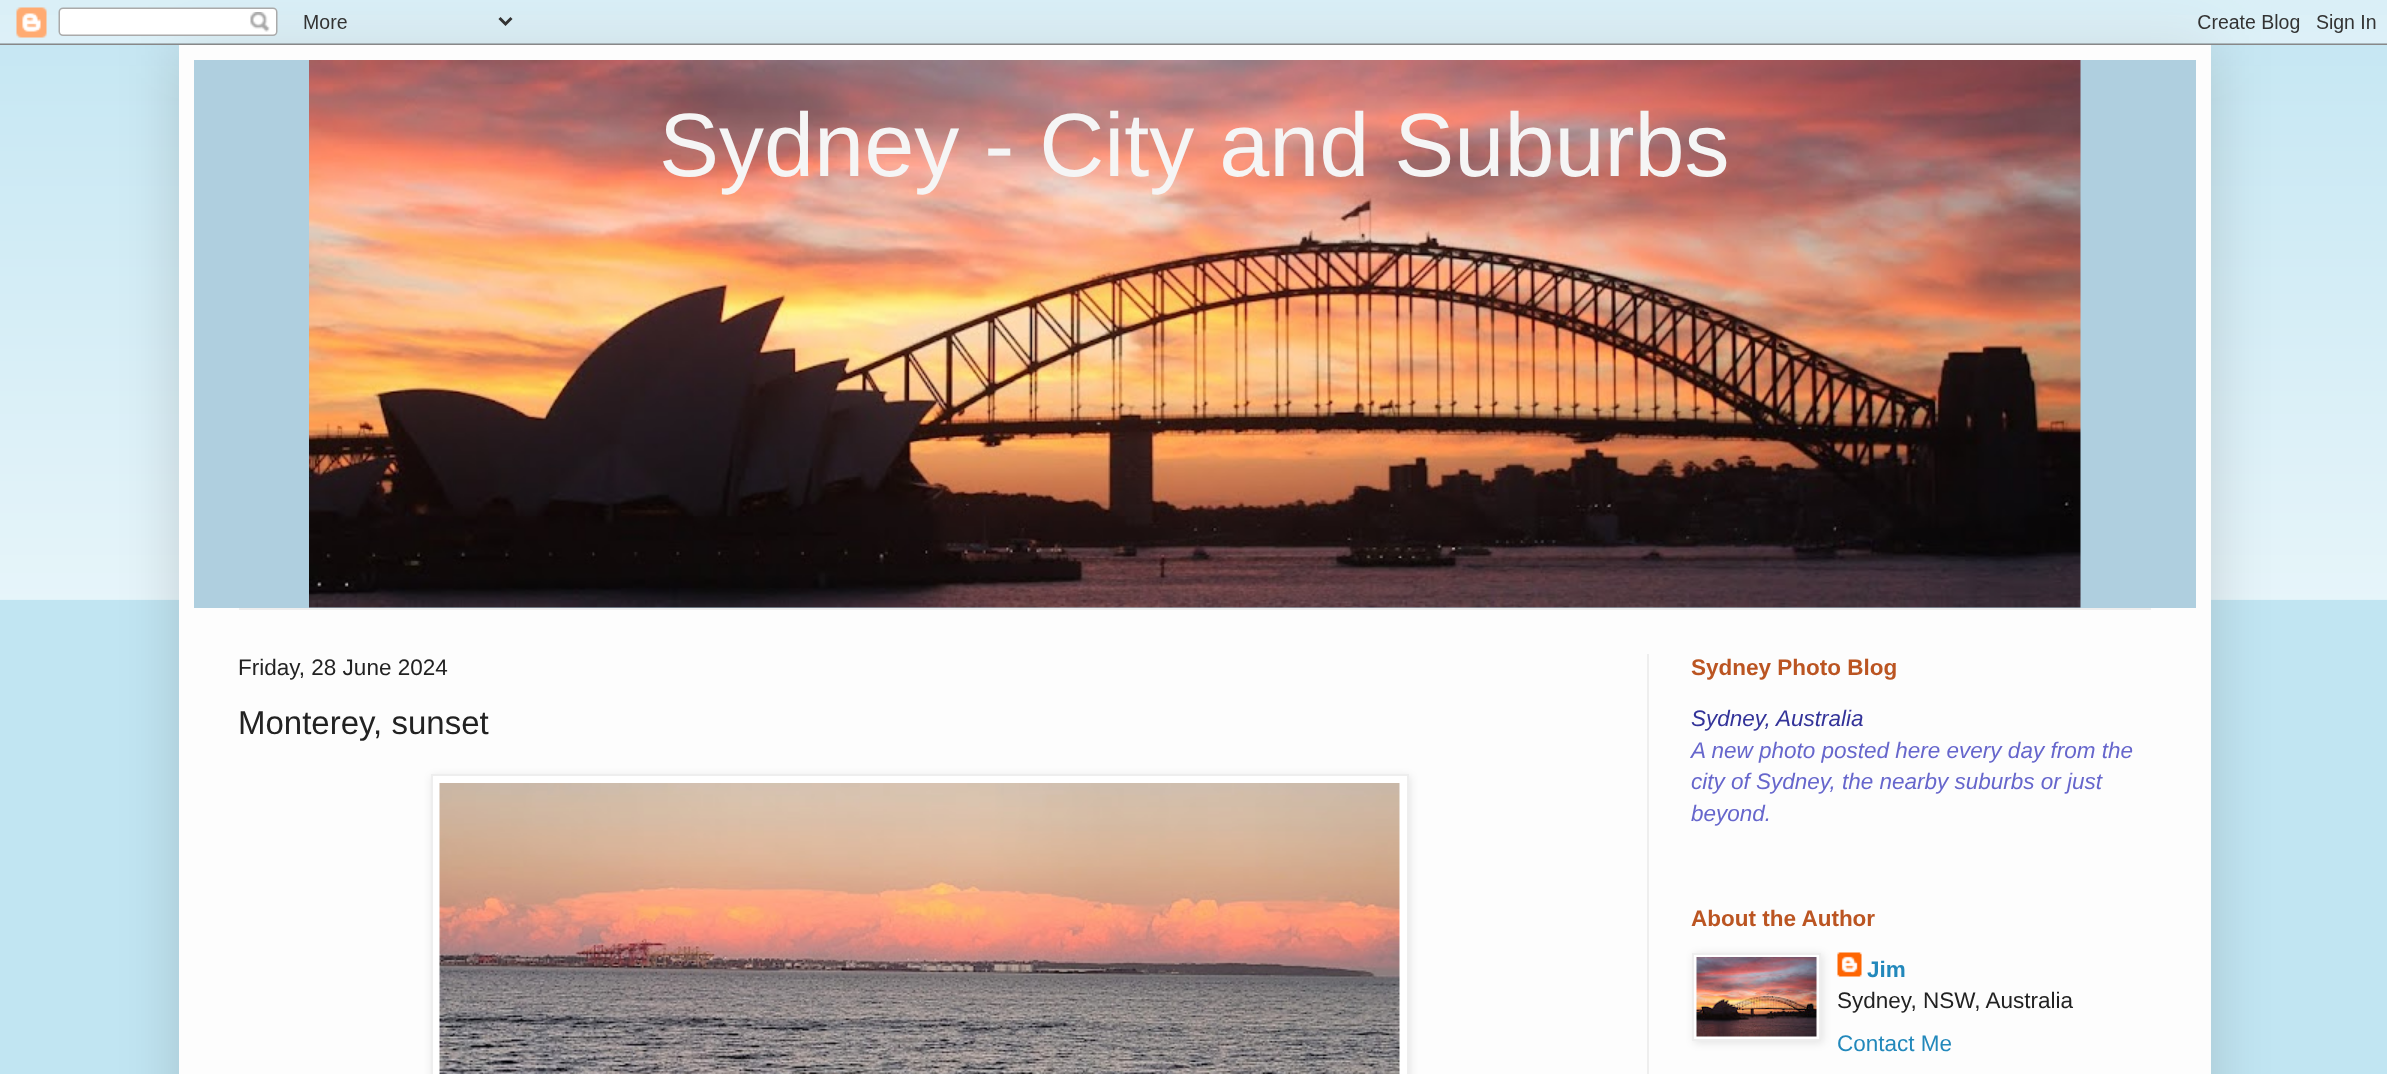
<!DOCTYPE html>
<meta charset="utf-8">
<style>body { margin: 0 } canvas { display: block }</style>
<canvas id="canvas" width="2387" height="1074"></canvas>
<script type="module">
  const canvas = document.getElementById("canvas");
  const ctx = canvas.getContext("2d");
  ctx.miterLimit = 4;
  ctx.fontKerning = "normal";
  async function loadImage(src) {
    const img = new Image();
    img.src = src;
    await img.decode();
    return img;
  }

  ctx.fillStyle = "#c1e5f2";
  ctx.fillRect(0, 0, 2387, 1074);
  ctx.drawImage(await loadImage("img2.png"), 0, 15, 2387, 585);
  ctx.fillStyle = "rgba(0, 0, 0, 0.15)";
  ctx.filter = "blur(30px)";
  ctx.beginPath();
  ctx.rect(179, 45, 2032, 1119);
  ctx.fill();
  ctx.filter = "none";
  ctx.drawImage(await loadImage("img1.png"), 0, 0, 2387, 45);
  ctx.fillStyle = "#fdfdfd";
  ctx.fillRect(179, 45, 2032, 1029);
  ctx.fillStyle = "#afcfdf";
  ctx.fillRect(194, 60, 2002, 548);
  ctx.drawImage(await loadImage("img3.png"), 309, 60, 1772, 548);
  ctx.font = "90px Liberation Sans";
  ctx.fillStyle = "#f5f5f5";
  ctx.fillText("Sydney - City and Suburbs", 659, 176);
  ctx.fillStyle = "#eeeeee";
  ctx.fillRect(239, 608, 1912, 2);
  ctx.fillRect(1647, 654, 2, 420);
  ctx.font = "22.5px Liberation Sans";
  ctx.fillStyle = "#222222";
  ctx.fillText("Friday, 28 June 2024", 238, 675);
  ctx.font = "33px Liberation Sans";
  ctx.fillText("Monterey, sunset", 238, 734);
  ctx.fillStyle = "rgba(0, 0, 0, 0.1)";
  ctx.filter = "blur(4px)";
  ctx.beginPath();
  ctx.rect(432, 776, 978, 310);
  ctx.fill();
  ctx.filter = "none";
  ctx.fillStyle = "#ffffff";
  ctx.beginPath();
  ctx.rect(432, 775, 976, 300);
  ctx.fill();
  ctx.strokeStyle = "#eeeeee";
  ctx.lineWidth = 2;
  ctx.stroke();
  ctx.drawImage(await loadImage("img4.png"), 439, 783, 961, 291);
  ctx.font = "bold 22.5px Liberation Sans";
  ctx.fillStyle = "#bb5522";
  ctx.fillText("Sydney Photo Blog", 1691, 675);
  ctx.font = "italic 22.5px Liberation Sans";
  ctx.fillStyle = "#333399";
  ctx.fillText("Sydney, Australia", 1691, 726);
  ctx.fillStyle = "#6666cc";
  ctx.fillText("A new photo posted here every day from the", 1691, 758);
  ctx.fillText("city of Sydney, the nearby suburbs or just", 1691, 789);
  ctx.fillText("beyond.", 1691, 821);
  ctx.font = "bold 22.5px Liberation Sans";
  ctx.fillStyle = "#bb5522";
  ctx.fillText("About the Author", 1691, 926);
  ctx.fillStyle = "rgba(0, 0, 0, 0.1)";
  ctx.filter = "blur(4px)";
  ctx.beginPath();
  ctx.rect(1694, 954, 129, 89);
  ctx.fill();
  ctx.filter = "none";
  ctx.fillStyle = "#ffffff";
  ctx.beginPath();
  ctx.rect(1693, 954, 127, 86);
  ctx.fill();
  ctx.stroke();
  ctx.drawImage(await loadImage("img5.png"), 1696, 957, 121, 80);
  ctx.drawImage(await loadImage("img6.png"), 1837, 952, 25, 25);
  ctx.fillStyle = "#2288bb";
  ctx.fillText("Jim", 1867, 977);
  ctx.font = "22.5px Liberation Sans";
  ctx.fillStyle = "#222222";
  ctx.fillText("Sydney, NSW, Australia", 1837, 1008);
  ctx.fillStyle = "#2288bb";
  ctx.fillText("Contact Me", 1837, 1051);
</script>
